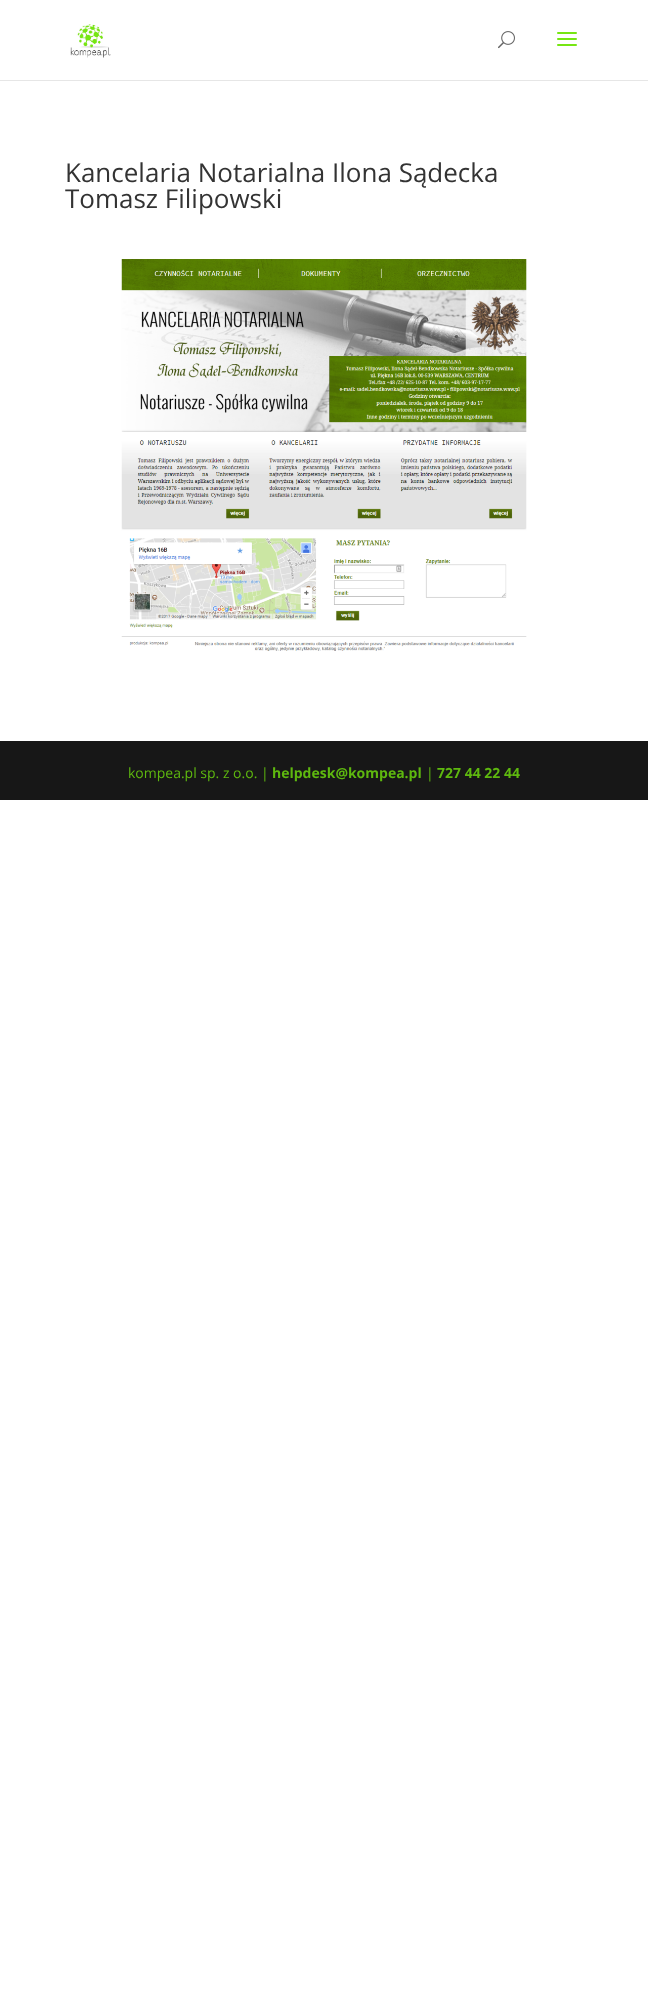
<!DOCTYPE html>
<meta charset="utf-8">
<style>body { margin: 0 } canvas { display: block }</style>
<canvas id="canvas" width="648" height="1990"></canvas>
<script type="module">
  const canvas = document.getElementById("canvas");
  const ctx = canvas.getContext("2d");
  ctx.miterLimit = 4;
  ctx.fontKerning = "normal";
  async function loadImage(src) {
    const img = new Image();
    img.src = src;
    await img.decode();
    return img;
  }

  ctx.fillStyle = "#ffffff";
  ctx.fillRect(0, 0, 648, 1990);
  ctx.fillStyle = "#e6e6e6";
  ctx.fillRect(0, 80, 648, 1);
  ctx.drawImage(await loadImage("img1.png"), 70, 24, 41, 34);
  ctx.drawImage(await loadImage("img2.png"), 498, 31, 17, 18);
  ctx.drawImage(await loadImage("img3.png"), 557, 32, 20, 14);
  ctx.font = "26px Open Sans";
  ctx.fillStyle = "#333333";
  ctx.fillText("Kancelaria Notarialna Ilona Sądecka", 65, 182);
  ctx.fillText("Tomasz Filipowski", 65, 208);
  ctx.drawImage(await loadImage("img4.png"), 121, 259, 406, 392);
  ctx.fillStyle = "#171717";
  ctx.fillRect(0, 741, 648, 59);
  ctx.font = "14px Open Sans";
  ctx.fillStyle = "#5eb80f";
  ctx.fillText("kompea.pl sp. z o.o. |", 128, 778);
  ctx.font = "bold 14px Open Sans";
  ctx.fillText("helpdesk@kompea.pl", 272, 778);
  ctx.font = "14px Open Sans";
  ctx.fillText("|", 426, 778);
  ctx.font = "bold 14px Open Sans";
  ctx.fillText("727 44 22 44", 437, 778);
</script>
